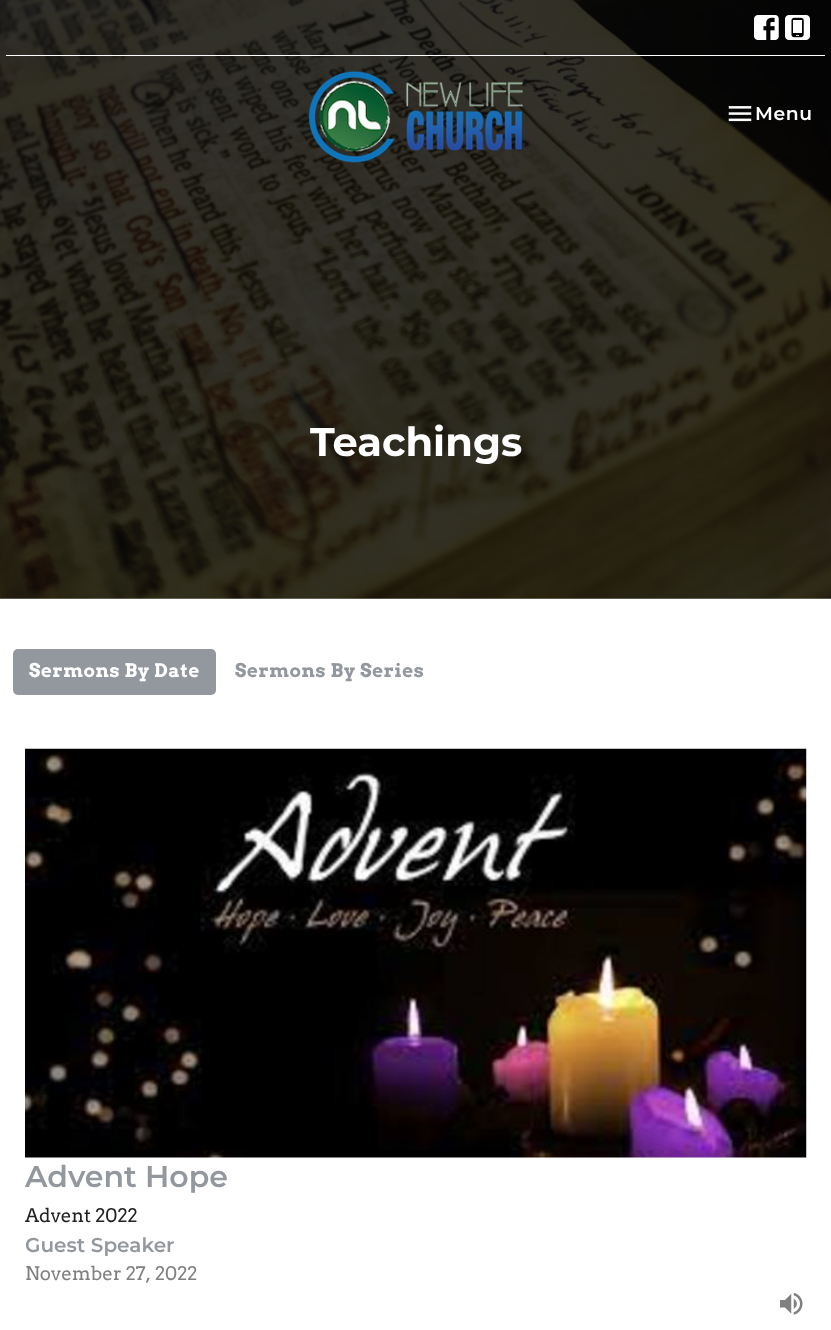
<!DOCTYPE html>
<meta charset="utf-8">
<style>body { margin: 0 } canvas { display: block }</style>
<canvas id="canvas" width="831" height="1330"></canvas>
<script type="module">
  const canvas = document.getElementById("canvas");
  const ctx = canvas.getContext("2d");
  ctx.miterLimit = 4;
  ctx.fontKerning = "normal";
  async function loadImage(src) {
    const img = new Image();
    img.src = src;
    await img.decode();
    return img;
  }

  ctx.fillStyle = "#ffffff";
  ctx.fillRect(0, 0, 831, 1330);
  ctx.drawImage(await loadImage("img5.png"), 0, 0, 831, 599);
  ctx.fillRect(6, 55, 819, 1);
  ctx.drawImage(await loadImage("img1.png"), 754, 15, 25, 25);
  ctx.drawImage(await loadImage("img2.png"), 785, 15, 25, 25);
  ctx.drawImage(await loadImage("img3.png"), 308, 70, 215, 93);
  ctx.drawImage(await loadImage("img4.png"), 728, 106, 24, 16);
  ctx.letterSpacing = "0.6px";
  ctx.font = "600 18.75px Montserrat";
  ctx.fillText("Menu", 755, 120);
  ctx.letterSpacing = "0px";
  ctx.font = "bold 40px Montserrat";
  ctx.fillText("Teachings", 310, 456);
  ctx.fillStyle = "#93979e";
  ctx.beginPath();
  ctx.roundRect(13, 649, 203, 46, 5);
  ctx.fill();
  ctx.letterSpacing = "0.6px";
  ctx.font = "bold 18.75px Arvo";
  ctx.fillStyle = "#ffffff";
  ctx.fillText("Sermons By Date", 29, 677);
  ctx.fillStyle = "#93979e";
  ctx.fillText("Sermons By Series", 235, 677);
  ctx.drawImage(await loadImage("img6.png"), 25, 748, 782, 410);
  ctx.letterSpacing = "0px";
  ctx.font = "600 30px Montserrat";
  ctx.fillText("Advent Hope", 25, 1187);
  ctx.font = "18.75px Arvo";
  ctx.fillStyle = "#222222";
  ctx.fillText("Advent 2022", 25, 1222);
  ctx.font = "600 20px Montserrat";
  ctx.fillStyle = "#93979e";
  ctx.fillText("Guest Speaker", 25, 1252);
  ctx.font = "18.75px Arvo";
  ctx.fillStyle = "#808080";
  ctx.fillText("November 27, 2022", 25, 1280);
  ctx.drawImage(await loadImage("img7.png"), 780, 1292, 23, 23);
</script>
